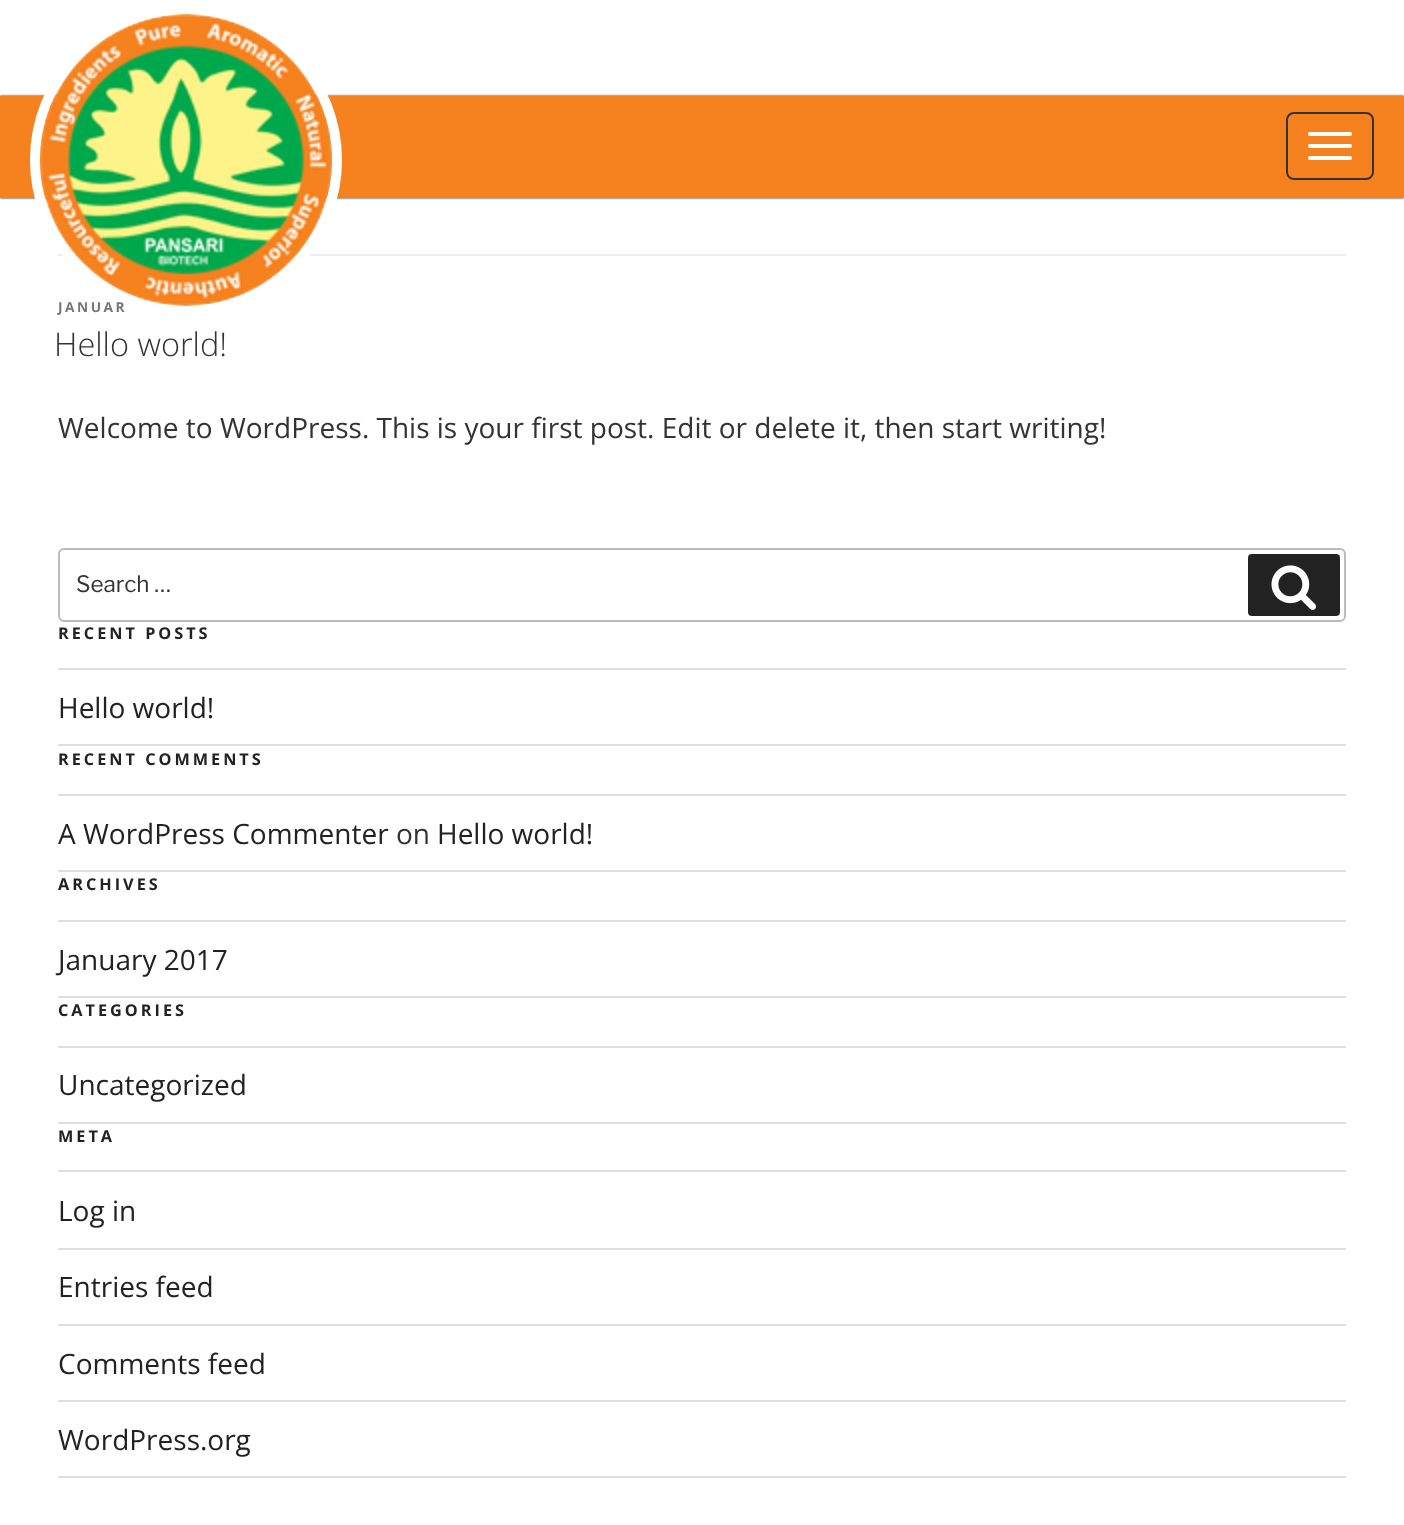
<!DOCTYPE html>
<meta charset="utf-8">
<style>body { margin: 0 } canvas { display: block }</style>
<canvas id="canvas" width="1404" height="1525"></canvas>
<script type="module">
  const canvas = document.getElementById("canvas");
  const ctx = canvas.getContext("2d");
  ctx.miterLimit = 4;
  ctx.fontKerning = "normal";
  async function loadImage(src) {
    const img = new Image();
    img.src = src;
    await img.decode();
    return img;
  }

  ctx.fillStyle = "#ffffff";
  ctx.fillRect(0, 0, 1404, 1525);
  ctx.fillStyle = "#000000";
  ctx.filter = "blur(1px)";
  ctx.beginPath();
  ctx.rect(0, 96, 1404, 102);
  ctx.fill();
  ctx.filter = "none";
  ctx.fillStyle = "#f5821f";
  ctx.fillRect(0, 96, 1404, 102);
  ctx.fillStyle = "#eeeeee";
  ctx.fillRect(58, 254, 1288, 2);
  ctx.letterSpacing = "2.5px";
  ctx.font = "bold 13.75px Open Sans";
  ctx.fillStyle = "#767676";
  ctx.fillText("JANUAR", 58, 312);
  ctx.beginPath();
  ctx.arc(186, 160, 151, 0, Math.PI * 2);
  ctx.strokeStyle = "#ffffff";
  ctx.lineWidth = 10;
  ctx.stroke();
  ctx.drawImage(await loadImage("img1.png"), 40, 14, 292, 292);
  ctx.beginPath();
  ctx.roundRect(1287, 113, 86, 66, 7);
  ctx.strokeStyle = "#333333";
  ctx.lineWidth = 2;
  ctx.stroke();
  ctx.fillStyle = "#ffffff";
  ctx.beginPath();
  ctx.roundRect(1308, 132, 44, 4, 2);
  ctx.fill();
  ctx.beginPath();
  ctx.roundRect(1308, 144, 44, 4, 2);
  ctx.fill();
  ctx.beginPath();
  ctx.roundRect(1308, 156, 44, 4, 2);
  ctx.fill();
  ctx.letterSpacing = "0px";
  ctx.font = "300 32.5px Open Sans";
  ctx.fillStyle = "#333333";
  ctx.fillText("Hello world!", 54, 356);
  ctx.font = "28px Open Sans";
  ctx.fillText("Welcome to WordPress. This is your first post. Edit or delete it, then start writing!", 58, 438);
  ctx.beginPath();
  ctx.roundRect(59, 549, 1286, 72, 5);
  ctx.strokeStyle = "#bbbbbb";
  ctx.stroke();
  ctx.font = "22.5px Libre Franklin";
  ctx.fillText("Search …", 76, 592);
  ctx.fillStyle = "#222222";
  ctx.beginPath();
  ctx.roundRect(1248, 554, 92, 62, 4);
  ctx.fill();
  ctx.drawImage(await loadImage("img2.png"), 1271, 565, 46, 45);
  ctx.letterSpacing = "3px";
  ctx.font = "bold 16.25px Open Sans";
  ctx.fillText("RECENT POSTS", 58, 639);
  ctx.fillStyle = "#dddddd";
  ctx.fillRect(58, 668, 1288, 2);
  ctx.fillRect(58, 744, 1288, 2);
  ctx.letterSpacing = "0px";
  ctx.font = "28px Open Sans";
  ctx.fillStyle = "#222222";
  ctx.fillText("Hello world!", 58, 718);
  ctx.letterSpacing = "3px";
  ctx.font = "bold 16.25px Open Sans";
  ctx.fillText("RECENT COMMENTS", 58, 765);
  ctx.fillStyle = "#dddddd";
  ctx.fillRect(58, 794, 1288, 2);
  ctx.fillRect(58, 870, 1288, 2);
  ctx.letterSpacing = "0px";
  ctx.font = "28px Open Sans";
  ctx.fillStyle = "#222222";
  ctx.fillText("A WordPress Commenter", 58, 844);
  ctx.fillStyle = "#333333";
  ctx.fillText("on", 396, 844);
  ctx.fillStyle = "#222222";
  ctx.fillText("Hello world!", 437, 844);
  ctx.letterSpacing = "3px";
  ctx.font = "bold 16.25px Open Sans";
  ctx.fillText("ARCHIVES", 58, 890);
  ctx.fillStyle = "#dddddd";
  ctx.fillRect(58, 920, 1288, 2);
  ctx.fillRect(58, 996, 1288, 2);
  ctx.letterSpacing = "0px";
  ctx.font = "28px Open Sans";
  ctx.fillStyle = "#222222";
  ctx.fillText("January 2017", 58, 970);
  ctx.letterSpacing = "3px";
  ctx.font = "bold 16.25px Open Sans";
  ctx.fillText("CATEGORIES", 58, 1016);
  ctx.fillStyle = "#dddddd";
  ctx.fillRect(58, 1046, 1288, 2);
  ctx.fillRect(58, 1122, 1288, 2);
  ctx.letterSpacing = "0px";
  ctx.font = "28px Open Sans";
  ctx.fillStyle = "#222222";
  ctx.fillText("Uncategorized", 58, 1095);
  ctx.letterSpacing = "3px";
  ctx.font = "bold 16.25px Open Sans";
  ctx.fillText("META", 58, 1142);
  ctx.fillStyle = "#dddddd";
  ctx.fillRect(58, 1170, 1288, 2);
  ctx.fillRect(58, 1248, 1288, 2);
  ctx.letterSpacing = "0px";
  ctx.font = "28px Open Sans";
  ctx.fillStyle = "#222222";
  ctx.fillText("Log in", 58, 1221);
  ctx.fillStyle = "#dddddd";
  ctx.fillRect(58, 1324, 1288, 2);
  ctx.fillStyle = "#222222";
  ctx.fillText("Entries feed", 58, 1297);
  ctx.fillStyle = "#dddddd";
  ctx.fillRect(58, 1400, 1288, 2);
  ctx.fillStyle = "#222222";
  ctx.fillText("Comments feed", 58, 1374);
  ctx.fillStyle = "#dddddd";
  ctx.fillRect(58, 1476, 1288, 2);
  ctx.fillStyle = "#222222";
  ctx.fillText("WordPress.org", 58, 1450);
</script>
